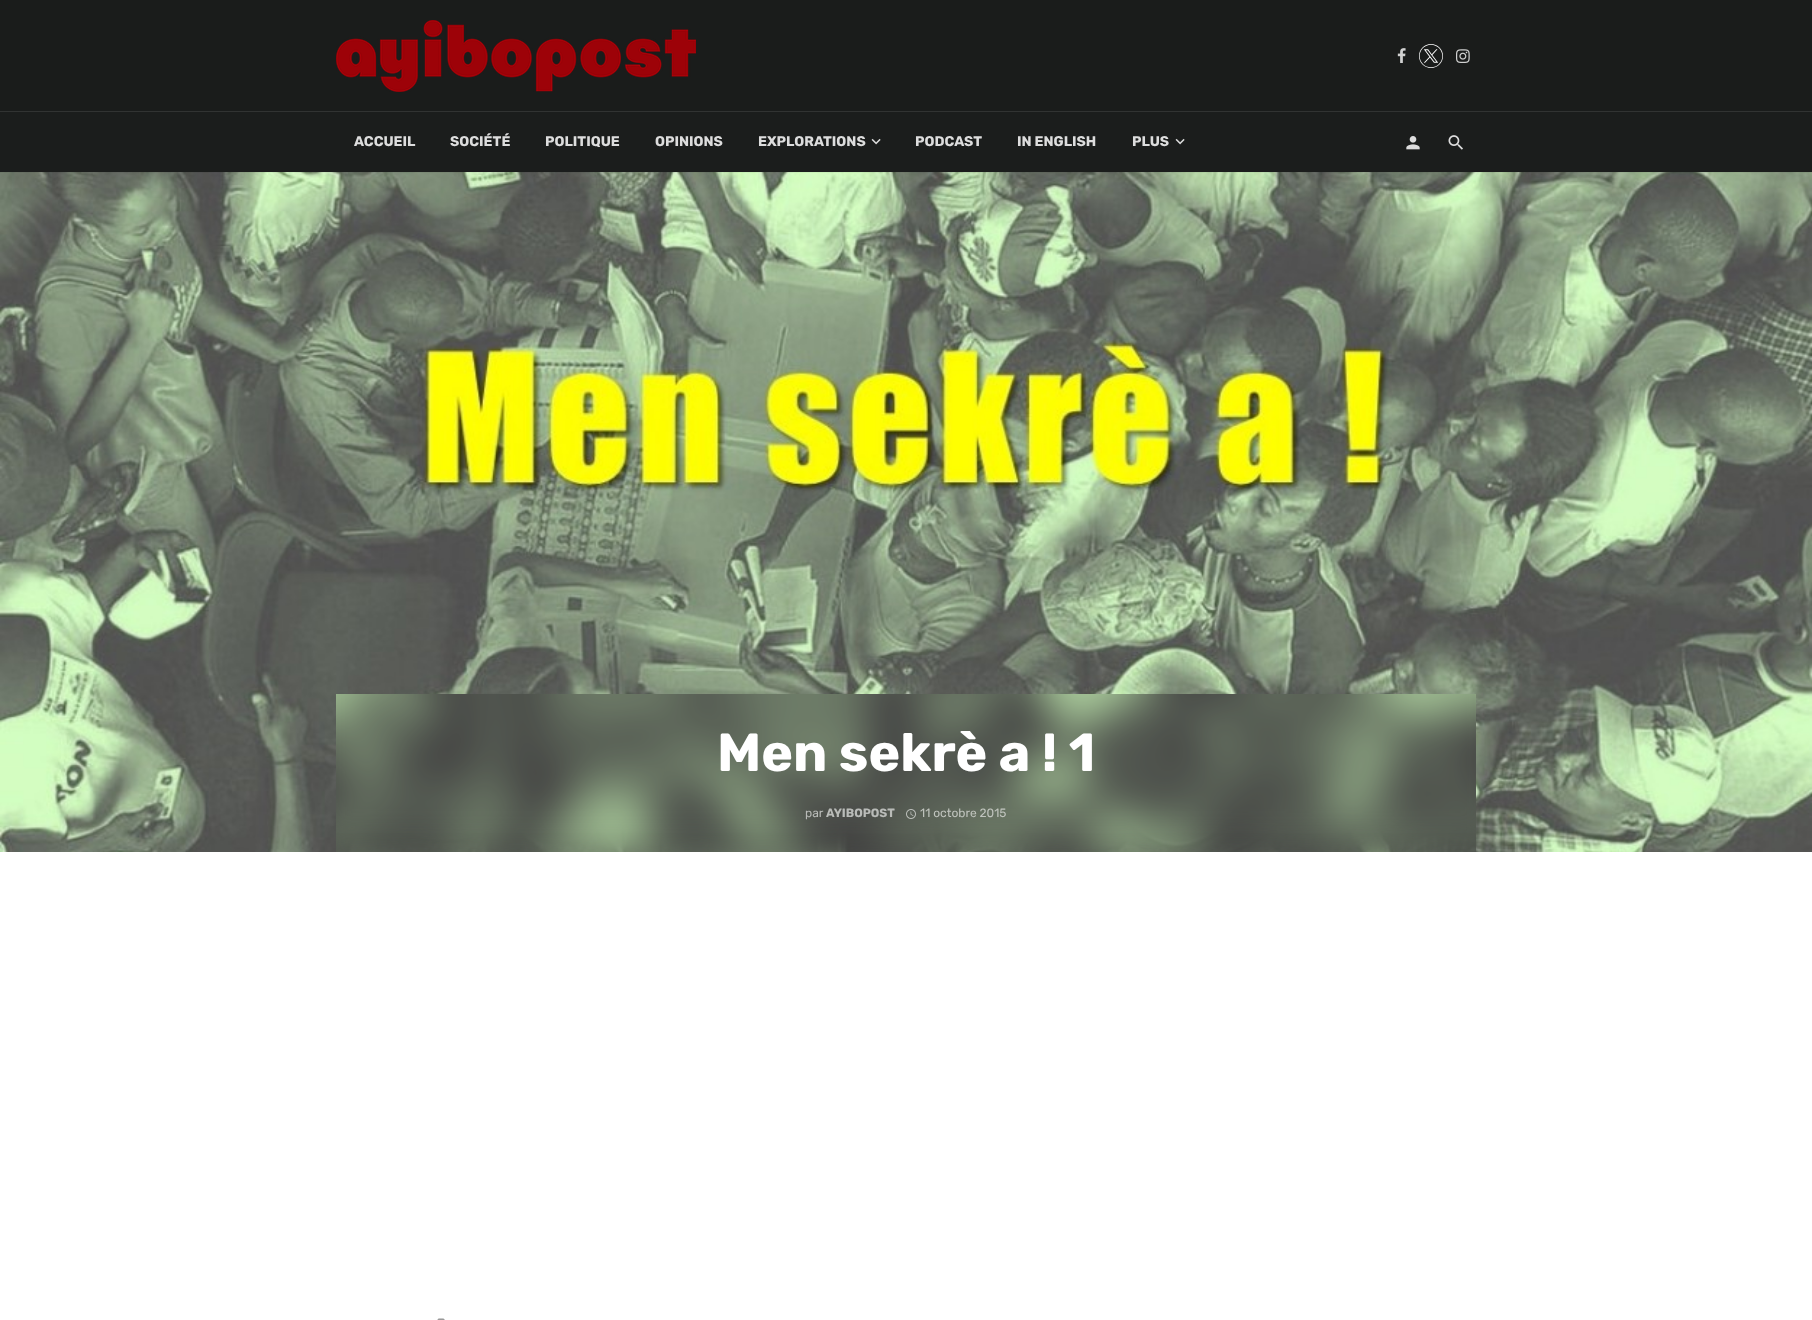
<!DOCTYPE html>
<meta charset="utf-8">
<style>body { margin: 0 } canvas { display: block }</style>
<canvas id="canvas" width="1812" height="1320"></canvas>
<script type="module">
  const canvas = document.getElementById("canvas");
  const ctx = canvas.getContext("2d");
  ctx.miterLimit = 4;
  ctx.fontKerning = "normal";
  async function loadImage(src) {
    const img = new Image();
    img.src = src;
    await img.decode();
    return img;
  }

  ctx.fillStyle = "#ffffff";
  ctx.fillRect(0, 0, 1812, 1320);
  ctx.drawImage(await loadImage("img8.png"), 0, 172, 1812, 680);
  ctx.save();
  ctx.beginPath();
  ctx.rect(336, 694, 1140, 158);
  ctx.clip();
  ctx.fillStyle = "#333333";
  ctx.filter = "blur(20px)";
  ctx.beginPath();
  ctx.rect(302, 172, 1208, 680);
  ctx.fill();
  ctx.filter = "none";
  ctx.restore();
  ctx.drawImage(await loadImage("img9.png"), 336, 694, 1140, 158);
  ctx.save();
  ctx.beginPath();
  ctx.rect(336, 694, 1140, 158);
  ctx.clip();
  ctx.fillStyle = "rgba(17, 17, 17, 0.2)";
  ctx.filter = "blur(20px)";
  ctx.beginPath();
  ctx.rect(302, 172, 1208, 680);
  ctx.fill();
  ctx.filter = "none";
  ctx.restore();
  ctx.fillStyle = "rgba(0, 0, 0, 0.04)";
  ctx.fillRect(0, 172, 1812, 1);
  ctx.fillStyle = "#1a1c1b";
  ctx.fillRect(0, 0, 1812, 111);
  ctx.drawImage(await loadImage("img1.png"), 336, 20, 360, 72);
  ctx.drawImage(await loadImage("img2.png"), 1397, 48, 9, 15);
  ctx.drawImage(await loadImage("img3.png"), 1419, 44, 24, 24);
  ctx.drawImage(await loadImage("img4.png"), 1456, 49, 14, 14);
  ctx.fillStyle = "#313332";
  ctx.fillRect(0, 111, 1812, 1);
  ctx.fillStyle = "#1b1d1c";
  ctx.fillRect(0, 112, 1812, 60);
  ctx.font = "bold 14px Rubik";
  ctx.fillStyle = "#dddddd";
  ctx.fillText("ACCUEIL", 354, 146);
  ctx.fillText("SOCIÉTÉ", 450, 146);
  ctx.fillText("POLITIQUE", 545, 146);
  ctx.fillText("OPINIONS", 655, 146);
  ctx.fillText("EXPLORATIONS", 758, 146);
  ctx.drawImage(await loadImage("img5.png"), 871, 138, 10, 7);
  ctx.fillText("PODCAST", 915, 146);
  ctx.fillText("IN ENGLISH", 1017, 146);
  ctx.fillText("PLUS", 1132, 146);
  ctx.drawImage(await loadImage("img5.png"), 1175, 138, 10, 7);
  ctx.drawImage(await loadImage("img6.png"), 1406, 136, 14, 14);
  ctx.drawImage(await loadImage("img7.png"), 1448, 135, 15, 15);
  ctx.font = "bold 53.5px Rubik";
  ctx.fillStyle = "#ffffff";
  ctx.fillText("Men sekrè a ! 1", 717, 771);
  ctx.font = "12px Rubik";
  ctx.fillStyle = "#b9bbb8";
  ctx.fillText("par", 805, 817);
  ctx.font = "bold 12px Rubik";
  ctx.fillText("AYIBOPOST", 826, 817);
  ctx.drawImage(await loadImage("img10.png"), 906, 809, 10, 10);
  ctx.font = "12px Rubik";
  ctx.fillStyle = "#c0c4be";
  ctx.fillText("11 octobre 2015", 920, 817);
  ctx.drawImage(await loadImage("img11.png"), 437, 1318, 8, 2);
</script>
